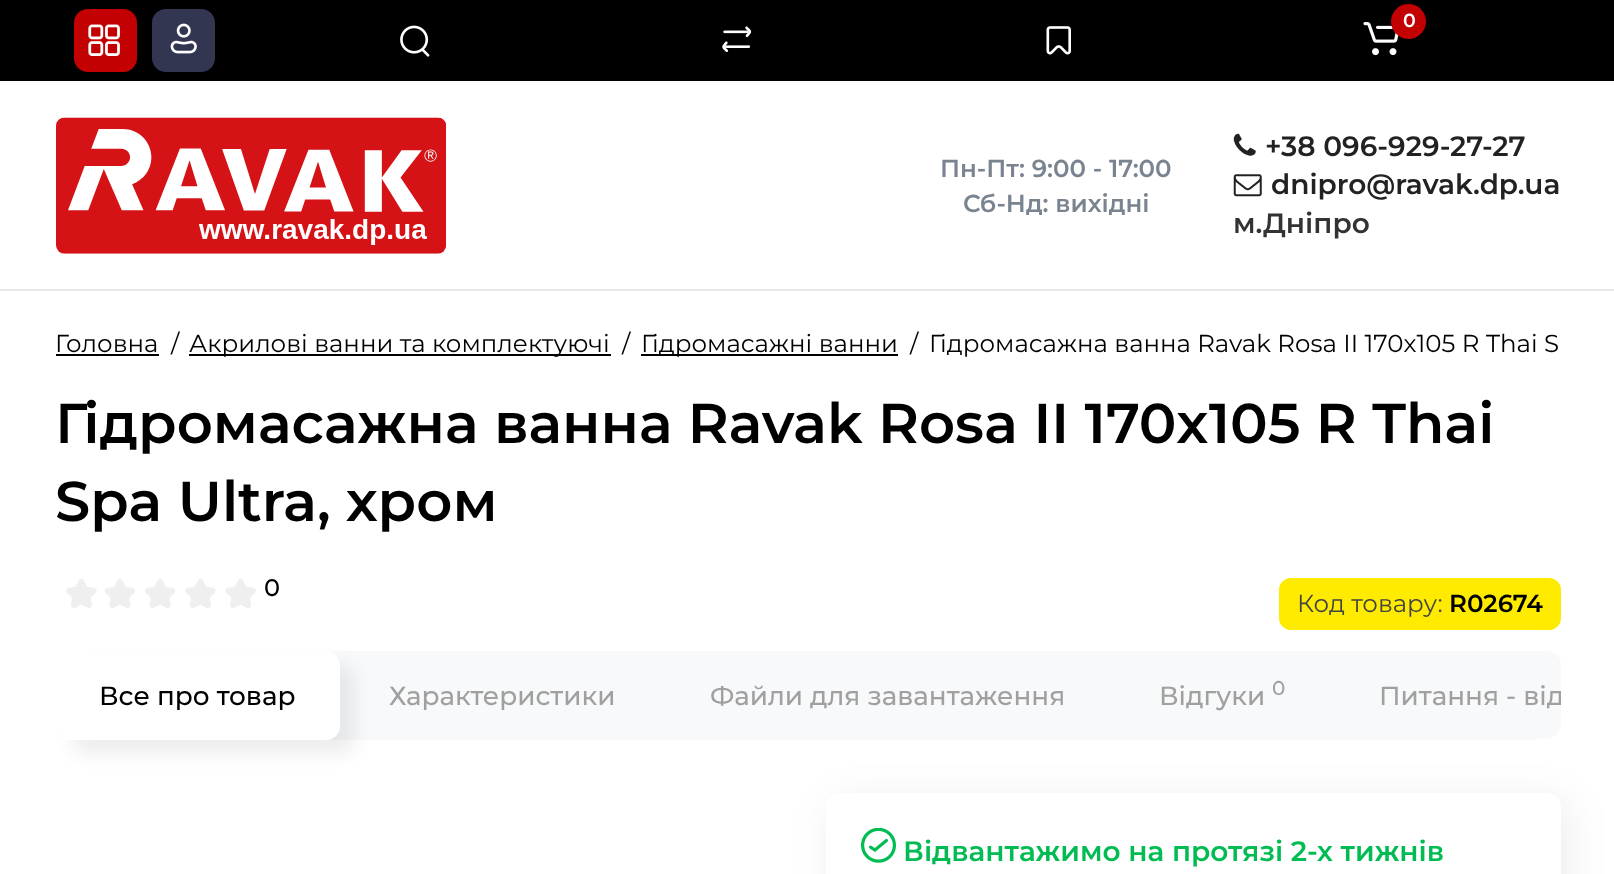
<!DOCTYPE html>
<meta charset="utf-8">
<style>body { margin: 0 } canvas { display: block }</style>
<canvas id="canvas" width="1614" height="874"></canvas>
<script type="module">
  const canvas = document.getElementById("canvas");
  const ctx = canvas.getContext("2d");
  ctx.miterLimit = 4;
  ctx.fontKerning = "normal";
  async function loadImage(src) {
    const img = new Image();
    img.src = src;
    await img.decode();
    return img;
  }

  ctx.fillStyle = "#ffffff";
  ctx.fillRect(0, 0, 1614, 874);
  ctx.fillStyle = "#000000";
  ctx.fillRect(0, 0, 1614, 81);
  ctx.fillStyle = "#c30002";
  ctx.beginPath();
  ctx.roundRect(74, 9, 63, 63, 14);
  ctx.fill();
  ctx.drawImage(await loadImage("img1.png"), 88, 24, 32, 32);
  ctx.fillStyle = "#333651";
  ctx.beginPath();
  ctx.roundRect(152, 9, 63, 63, 14);
  ctx.fill();
  ctx.drawImage(await loadImage("img2.png"), 170, 23, 27, 31);
  ctx.drawImage(await loadImage("img3.png"), 1363, 22, 36, 34);
  ctx.fillStyle = "#c30002";
  ctx.beginPath();
  ctx.arc(1408.5, 21.5, 17.5, 0, Math.PI * 2);
  ctx.fill();
  ctx.font = "600 19px Montserrat";
  ctx.fillStyle = "#ffffff";
  ctx.fillText("0", 1403, 27);
  ctx.drawImage(await loadImage("img4.png"), 400, 25, 30, 32);
  ctx.drawImage(await loadImage("img5.png"), 722, 26, 30, 26);
  ctx.drawImage(await loadImage("img6.png"), 1046, 26, 25, 29);
  ctx.fillStyle = "#e7e7e7";
  ctx.fillRect(0, 289, 1614, 2);
  ctx.drawImage(await loadImage("img7.png"), 56, 117, 390, 137);
  ctx.font = "600 24.5px Montserrat";
  ctx.fillStyle = "#7a8490";
  ctx.fillText("Пн-Пт: 9:00 - 17:00", 940, 177);
  ctx.fillText("Сб-Нд: вихідні", 963, 212);
  ctx.drawImage(await loadImage("img8.png"), 1233, 133, 23, 23);
  ctx.font = "600 28px Montserrat";
  ctx.fillStyle = "#222222";
  ctx.fillText("+38 096-929-27-27", 1265, 156);
  ctx.drawImage(await loadImage("img9.png"), 1233, 174, 29, 23);
  ctx.fillText("dnipro@ravak.dp.ua", 1271, 194);
  ctx.fillStyle = "#333333";
  ctx.fillText("м.Дніпро", 1233, 233);
  ctx.font = "24.5px Montserrat";
  ctx.fillStyle = "#000000";
  ctx.fillText("Головна", 55, 352);
  ctx.fillRect(56, 354, 103, 2);
  ctx.fillText("/", 171, 352);
  ctx.fillRect(189, 354, 422, 2);
  ctx.fillText("Акрилові ванни та комплектуючі", 189, 352);
  ctx.fillText("/", 622, 352);
  ctx.fillRect(641, 354, 257, 2);
  ctx.fillText("Гідромасажні ванни", 641, 352);
  ctx.fillText("/", 910, 352);
  ctx.fillText("Гідромасажна ванна Ravak Rosa II 170х105 R Thai S", 929, 352);
  ctx.font = "600 56px Montserrat";
  ctx.fillText("Гідромасажна ванна Ravak Rosa II 170х105 R Thai", 55, 443);
  ctx.fillText("Spa Ultra, хром", 55, 521);
  ctx.drawImage(await loadImage("img10.png"), 66, 579, 31, 29);
  ctx.drawImage(await loadImage("img11.png"), 104, 579, 31, 29);
  ctx.drawImage(await loadImage("img12.png"), 145, 579, 31, 29);
  ctx.drawImage(await loadImage("img10.png"), 185, 579, 31, 29);
  ctx.drawImage(await loadImage("img13.png"), 225, 579, 31, 29);
  ctx.font = "500 24px Montserrat";
  ctx.fillText("0", 264, 596);
  ctx.fillStyle = "#ffeb00";
  ctx.beginPath();
  ctx.roundRect(1279, 578, 282, 52, 12);
  ctx.fill();
  ctx.font = "24.5px Montserrat";
  ctx.fillStyle = "#444444";
  ctx.fillText("Код товару:", 1297, 612);
  ctx.font = "600 24.5px Montserrat";
  ctx.fillStyle = "#000000";
  ctx.fillText("R02674", 1449, 612);
  ctx.fillStyle = "#f8f9fa";
  ctx.beginPath();
  ctx.roundRect(56, 651, 1505, 89, [14, 14, 0, 14]);
  ctx.fill();
  ctx.fillStyle = "#ffffff";
  ctx.beginPath();
  ctx.moveTo(51, 714);
  ctx.lineTo(51, 728);
  ctx.bezierCurveTo(51, 737, 58, 744, 67, 744);
  ctx.lineTo(81, 744);
  ctx.lineTo(81, 738.5);
  ctx.lineTo(70, 738.5);
  ctx.bezierCurveTo(62.5, 738.5, 56, 732, 56, 724.5);
  ctx.lineTo(56, 714);
  ctx.closePath();
  ctx.fill();
  ctx.fillStyle = "rgba(0, 0, 0, 0.07)";
  ctx.filter = "blur(9px)";
  ctx.beginPath();
  ctx.roundRect(72, 665, 283, 89, 14);
  ctx.fill();
  ctx.filter = "none";
  ctx.fillStyle = "#ffffff";
  ctx.beginPath();
  ctx.roundRect(56, 651, 284, 89, 14);
  ctx.fill();
  ctx.font = "500 26.25px Montserrat";
  ctx.fillStyle = "#a0a0a0";
  ctx.fillText("Файли для завантаження", 710, 705);
  ctx.fillText("Відгуки", 1159, 705);
  ctx.font = "500 20px Montserrat";
  ctx.fillText("0", 1272, 695);
  ctx.save();
  ctx.beginPath();
  ctx.roundRect(56, 651, 1505, 116, 14);
  ctx.clip();
  ctx.font = "500 26.25px Montserrat";
  ctx.fillText("Питання - від", 1379, 705);
  ctx.restore();
  ctx.font = "500 26.25px Montserrat";
  ctx.fillStyle = "#000000";
  ctx.fillText("Все про товар", 99, 705);
  ctx.fillStyle = "#a0a0a0";
  ctx.fillText("Характеристики", 389, 705);
  ctx.save();
  ctx.beginPath();
  ctx.moveTo(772, 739);
  ctx.lineTo(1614, 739);
  ctx.lineTo(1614, 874);
  ctx.lineTo(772, 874);
  ctx.closePath();
  ctx.moveTo(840, 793);
  ctx.lineTo(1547, 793);
  ctx.bezierCurveTo(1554.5, 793, 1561, 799.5, 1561, 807);
  ctx.lineTo(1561, 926);
  ctx.bezierCurveTo(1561, 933.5, 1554.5, 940, 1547, 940);
  ctx.lineTo(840, 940);
  ctx.bezierCurveTo(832.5, 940, 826, 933.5, 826, 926);
  ctx.lineTo(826, 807);
  ctx.bezierCurveTo(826, 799.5, 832.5, 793, 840, 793);
  ctx.closePath();
  ctx.clip("evenodd");
  ctx.fillStyle = "rgba(0, 0, 0, 0.07)";
  ctx.filter = "blur(20px)";
  ctx.beginPath();
  ctx.roundRect(833, 800, 735, 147, 14);
  ctx.fill();
  ctx.filter = "none";
  ctx.restore();
  ctx.fillStyle = "#ffffff";
  ctx.beginPath();
  ctx.moveTo(1537, 738.5);
  ctx.lineTo(1537, 744);
  ctx.lineTo(1550, 744);
  ctx.bezierCurveTo(1559, 744, 1566, 737, 1566, 728);
  ctx.lineTo(1566, 714);
  ctx.lineTo(1561, 714);
  ctx.lineTo(1561, 724.5);
  ctx.bezierCurveTo(1561, 732, 1554.5, 738.5, 1547, 738.5);
  ctx.closePath();
  ctx.fill();
  ctx.drawImage(await loadImage("img14.png"), 861, 828, 35, 35);
  ctx.font = "600 28px Montserrat";
  ctx.fillStyle = "#00bc52";
  ctx.fillText("Відвантажимо на протязі 2-х тижнів", 903, 861);
</script>
